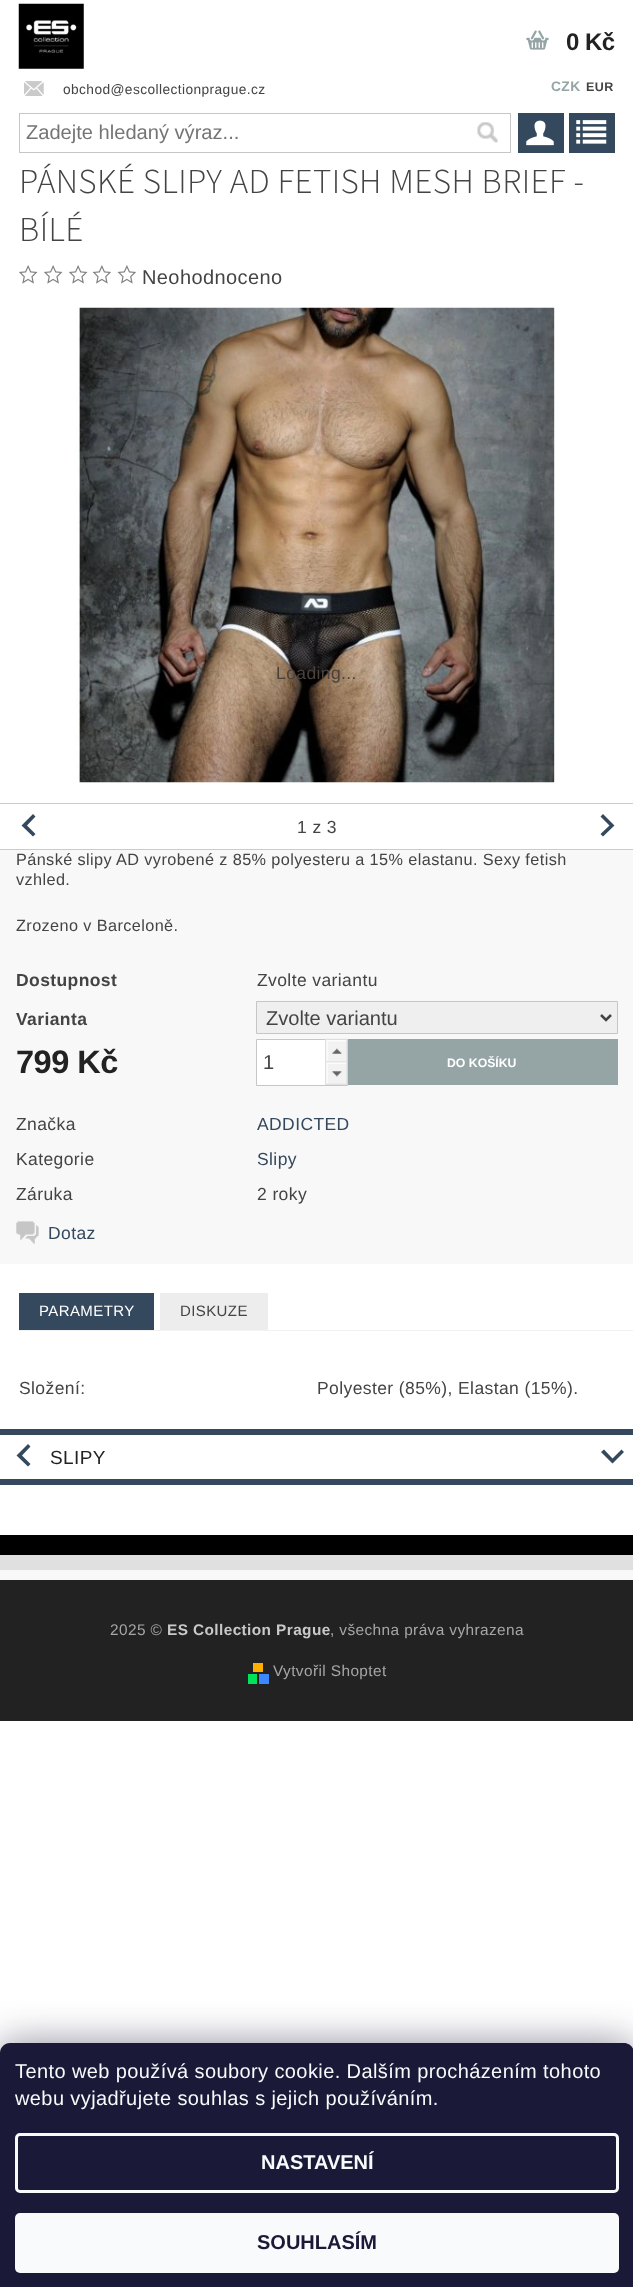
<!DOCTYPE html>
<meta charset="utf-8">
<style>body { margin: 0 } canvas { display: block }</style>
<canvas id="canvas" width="633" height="2287"></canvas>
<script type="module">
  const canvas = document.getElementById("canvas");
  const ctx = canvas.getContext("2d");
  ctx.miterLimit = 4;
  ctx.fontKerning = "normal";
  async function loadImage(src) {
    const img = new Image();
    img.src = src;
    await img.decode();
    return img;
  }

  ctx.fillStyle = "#ffffff";
  ctx.fillRect(0, 0, 633, 2287);
  ctx.fillStyle = "#000000";
  ctx.fillRect(0, 1535, 633, 20);
  ctx.drawImage(await loadImage("img1.png"), 18, 3, 66, 66);
  ctx.drawImage(await loadImage("img2.png"), 526, 30, 23, 20);
  ctx.letterSpacing = "-0.5px";
  ctx.font = "bold 24px Liberation Sans";
  ctx.fillStyle = "#222222";
  ctx.fillText("0 Kč", 566, 50);
  ctx.letterSpacing = "0.4px";
  ctx.font = "bold 13.75px Liberation Sans";
  ctx.fillStyle = "#95a5a6";
  ctx.fillText("CZK", 551, 91);
  ctx.font = "bold 12.5px Liberation Sans";
  ctx.fillStyle = "#444444";
  ctx.fillText("EUR", 586, 91);
  ctx.fillStyle = "#34495e";
  ctx.fillRect(518, 113, 46, 40);
  ctx.drawImage(await loadImage("img3.png"), 526, 120, 28, 26);
  ctx.drawImage(await loadImage("img4.png"), 24, 81, 20, 15);
  ctx.font = "13.75px Liberation Sans";
  ctx.fillStyle = "#444444";
  ctx.fillText("obchod@escollectionprague.cz", 63, 94);
  ctx.strokeStyle = "#c6c6c6";
  ctx.strokeRect(19.5, 113.5, 491, 39);
  ctx.letterSpacing = "0px";
  ctx.font = "20.1px Liberation Sans";
  ctx.fillStyle = "#757575";
  ctx.fillText("Zadejte hledaný výraz...", 26, 139);
  ctx.drawImage(await loadImage("img5.png"), 477, 122, 21, 21);
  ctx.fillStyle = "#34495e";
  ctx.fillRect(569, 113, 46, 40);
  ctx.drawImage(await loadImage("img6.png"), 576, 120, 31, 24);
  ctx.letterSpacing = "0.4px";
  ctx.font = "300 35px 'Source Sans 3'";
  ctx.fillStyle = "#444444";
  ctx.fillText("PÁNSKÉ SLIPY AD FETISH MESH BRIEF -", 19, 193);
  ctx.fillText("BÍLÉ", 19, 241);
  ctx.drawImage(await loadImage("img7.png"), 19, 265, 19, 19);
  ctx.drawImage(await loadImage("img7.png"), 44, 265, 19, 19);
  ctx.drawImage(await loadImage("img7.png"), 69, 265, 19, 19);
  ctx.drawImage(await loadImage("img8.png"), 92, 265, 19, 19);
  ctx.drawImage(await loadImage("img8.png"), 117, 265, 19, 19);
  ctx.font = "20px Liberation Sans";
  ctx.fillText("Neohodnoceno", 142, 284);
  ctx.drawImage(await loadImage("img9.png"), 75, 307, 480, 476);
  ctx.font = "17.5px Liberation Sans";
  ctx.fillStyle = "#49413b";
  ctx.fillText("Loading...", 276, 679);
  ctx.fillStyle = "#cbcbcb";
  ctx.fillRect(0, 803, 633, 1);
  ctx.fillRect(0, 849, 633, 1);
  ctx.fillStyle = "#34495e";
  ctx.beginPath();
  ctx.moveTo(33, 814);
  ctx.lineTo(21.5, 825.5);
  ctx.lineTo(33, 836.5);
  ctx.lineTo(35.5, 834);
  ctx.lineTo(27, 825.5);
  ctx.lineTo(35.5, 816.5);
  ctx.closePath();
  ctx.fill();
  ctx.fillStyle = "#444444";
  ctx.fillText("1 z 3", 297, 833);
  ctx.fillStyle = "#34495e";
  ctx.beginPath();
  ctx.moveTo(603, 814);
  ctx.lineTo(614.5, 825.5);
  ctx.lineTo(603, 836.5);
  ctx.lineTo(600.5, 834);
  ctx.lineTo(609.5, 825.5);
  ctx.lineTo(600.5, 816.5);
  ctx.closePath();
  ctx.fill();
  ctx.fillStyle = "#f8f8f8";
  ctx.fillRect(0, 850, 633, 414);
  ctx.font = "16.25px Liberation Sans";
  ctx.fillStyle = "#444444";
  ctx.fillText("Pánské slipy AD vyrobené z 85% polyesteru a 15% elastanu. Sexy fetish", 16, 865);
  ctx.fillText("vzhled.", 16, 885);
  ctx.fillText("Zrozeno v Barceloně.", 16, 931);
  ctx.font = "bold 17.5px Liberation Sans";
  ctx.fillText("Dostupnost", 16, 986);
  ctx.font = "17.5px Liberation Sans";
  ctx.fillText("Zvolte variantu", 257, 986);
  ctx.font = "bold 17.5px Liberation Sans";
  ctx.fillText("Varianta", 16, 1025);
  ctx.fillStyle = "#efefef";
  ctx.beginPath();
  ctx.rect(256.5, 1001.5, 361, 32);
  ctx.fill();
  ctx.stroke();
  ctx.beginPath();
  ctx.moveTo(601, 1015);
  ctx.lineTo(606, 1020);
  ctx.lineTo(611, 1015);
  ctx.strokeStyle = "#444444";
  ctx.lineWidth = 2.5;
  ctx.stroke();
  ctx.letterSpacing = "0px";
  ctx.font = "20.1px Liberation Sans";
  ctx.fillStyle = "#444444";
  ctx.fillText("Zvolte variantu", 266, 1025);
  ctx.letterSpacing = "-0.5px";
  ctx.font = "bold 32.5px Liberation Sans";
  ctx.fillStyle = "#222222";
  ctx.fillText("799 Kč", 16, 1073);
  ctx.fillStyle = "#ffffff";
  ctx.beginPath();
  ctx.rect(256.5, 1039.5, 91, 46);
  ctx.fill();
  ctx.strokeStyle = "#c6c6c6";
  ctx.lineWidth = 1;
  ctx.stroke();
  ctx.letterSpacing = "0px";
  ctx.font = "20.1px Liberation Sans";
  ctx.fillStyle = "#444444";
  ctx.fillText("1", 263, 1069);
  ctx.drawImage(await loadImage("img10.png"), 325, 1038, 23, 24);
  ctx.drawImage(await loadImage("img11.png"), 325, 1061, 23, 24);
  ctx.fillStyle = "#95a5a6";
  ctx.fillRect(348, 1039, 270, 46);
  ctx.font = "bold 12.25px Liberation Sans";
  ctx.fillStyle = "#ffffff";
  ctx.fillText("DO KOŠÍKU", 447, 1067);
  ctx.letterSpacing = "0.4px";
  ctx.font = "17.5px Liberation Sans";
  ctx.fillStyle = "#444444";
  ctx.fillText("Značka", 16, 1130);
  ctx.fillStyle = "#34495e";
  ctx.fillText("ADDICTED", 257, 1130);
  ctx.fillStyle = "#444444";
  ctx.fillText("Kategorie", 16, 1165);
  ctx.fillStyle = "#34495e";
  ctx.fillText("Slipy", 257, 1165);
  ctx.fillStyle = "#444444";
  ctx.fillText("Záruka", 16, 1200);
  ctx.fillText("2 roky", 257, 1200);
  ctx.drawImage(await loadImage("img12.png"), 16, 1221, 23, 23);
  ctx.fillStyle = "#34495e";
  ctx.fillText("Dotaz", 48, 1239);
  ctx.fillStyle = "#f2f2f2";
  ctx.fillRect(19, 1330, 614, 1);
  ctx.fillStyle = "#34495e";
  ctx.fillRect(19, 1293, 135, 37);
  ctx.font = "15px Liberation Sans";
  ctx.fillStyle = "#ffffff";
  ctx.fillText("PARAMETRY", 39, 1316);
  ctx.fillStyle = "#ededed";
  ctx.fillRect(160, 1293, 108, 37);
  ctx.fillStyle = "#444444";
  ctx.fillText("DISKUZE", 180, 1316);
  ctx.font = "17.5px Liberation Sans";
  ctx.fillText("Složení:", 19, 1394);
  ctx.fillText("Polyester (85%), Elastan (15%).", 317, 1394);
  ctx.fillStyle = "#34495e";
  ctx.fillRect(0, 1429, 633, 6);
  ctx.fillRect(0, 1479, 633, 6);
  ctx.beginPath();
  ctx.moveTo(28, 1444);
  ctx.lineTo(16.5, 1455.5);
  ctx.lineTo(28, 1466.5);
  ctx.lineTo(30.5, 1464);
  ctx.lineTo(22, 1455.5);
  ctx.lineTo(30.5, 1446.5);
  ctx.closePath();
  ctx.fill();
  ctx.font = "19px Liberation Sans";
  ctx.fillStyle = "#222222";
  ctx.fillText("SLIPY", 50, 1464);
  ctx.fillStyle = "#34495e";
  ctx.beginPath();
  ctx.moveTo(601, 1452);
  ctx.lineTo(612.5, 1463.5);
  ctx.lineTo(624, 1452);
  ctx.lineTo(621.5, 1449.5);
  ctx.lineTo(612.5, 1458.5);
  ctx.lineTo(604, 1449.5);
  ctx.closePath();
  ctx.fill();
  ctx.fillStyle = "#f8f8f8";
  ctx.fillRect(0, 1570, 633, 10);
  ctx.fillStyle = "#e0e0e0";
  ctx.fillRect(0, 1555, 633, 15);
  ctx.fillStyle = "#222222";
  ctx.fillRect(0, 1580, 633, 141);
  ctx.font = "15.4px Liberation Sans";
  ctx.fillStyle = "#a6a6a6";
  ctx.fillText("2025 ©", 110, 1635);
  ctx.font = "bold 15.4px Liberation Sans";
  ctx.fillStyle = "#c9c9c9";
  ctx.fillText("ES Collection Prague", 167, 1635);
  ctx.font = "15.4px Liberation Sans";
  ctx.fillStyle = "#a6a6a6";
  ctx.fillText(", všechna práva vyhrazena", 330, 1635);
  ctx.fillStyle = "#fcaf00";
  ctx.fillRect(253, 1663, 10, 9);
  ctx.fillStyle = "#00e25a";
  ctx.fillRect(248, 1674, 9, 10);
  ctx.fillStyle = "#3b88ff";
  ctx.fillRect(259, 1674, 10, 10);
  ctx.fillStyle = "#a6a6a6";
  ctx.fillText("Vytvořil Shoptet", 273, 1676);
  ctx.fillStyle = "rgba(27, 25, 57, 0.5)";
  ctx.filter = "blur(19px)";
  ctx.beginPath();
  ctx.roundRect(0, 2043, 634, 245, 10);
  ctx.fill();
  ctx.filter = "none";
  ctx.fillStyle = "#1a1937";
  ctx.beginPath();
  ctx.moveTo(10, 2043);
  ctx.lineTo(624, 2043);
  ctx.bezierCurveTo(629.5, 2043, 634, 2047.5, 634, 2053);
  ctx.lineTo(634, 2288);
  ctx.lineTo(0, 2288);
  ctx.lineTo(0, 2053);
  ctx.bezierCurveTo(0, 2047.5, 4.5, 2043, 10, 2043);
  ctx.closePath();
  ctx.fill();
  ctx.font = "20px Liberation Sans";
  ctx.fillStyle = "#f8fafb";
  ctx.fillText("Tento web používá soubory cookie. Dalším procházením tohoto", 15, 2078);
  ctx.fillText("webu vyjadřujete souhlas s jejich používáním.", 15, 2105);
  ctx.beginPath();
  ctx.roundRect(16.5, 2134.5, 601, 57, 3.5);
  ctx.strokeStyle = "#f8fafb";
  ctx.lineWidth = 3;
  ctx.stroke();
  ctx.letterSpacing = "0px";
  ctx.font = "bold 20px Liberation Sans";
  ctx.fillText("NASTAVENÍ", 261, 2169);
  ctx.beginPath();
  ctx.roundRect(15, 2213, 604, 60, 5);
  ctx.fill();
  ctx.fillStyle = "#1a1937";
  ctx.fillText("SOUHLASÍM", 257, 2249);
</script>
